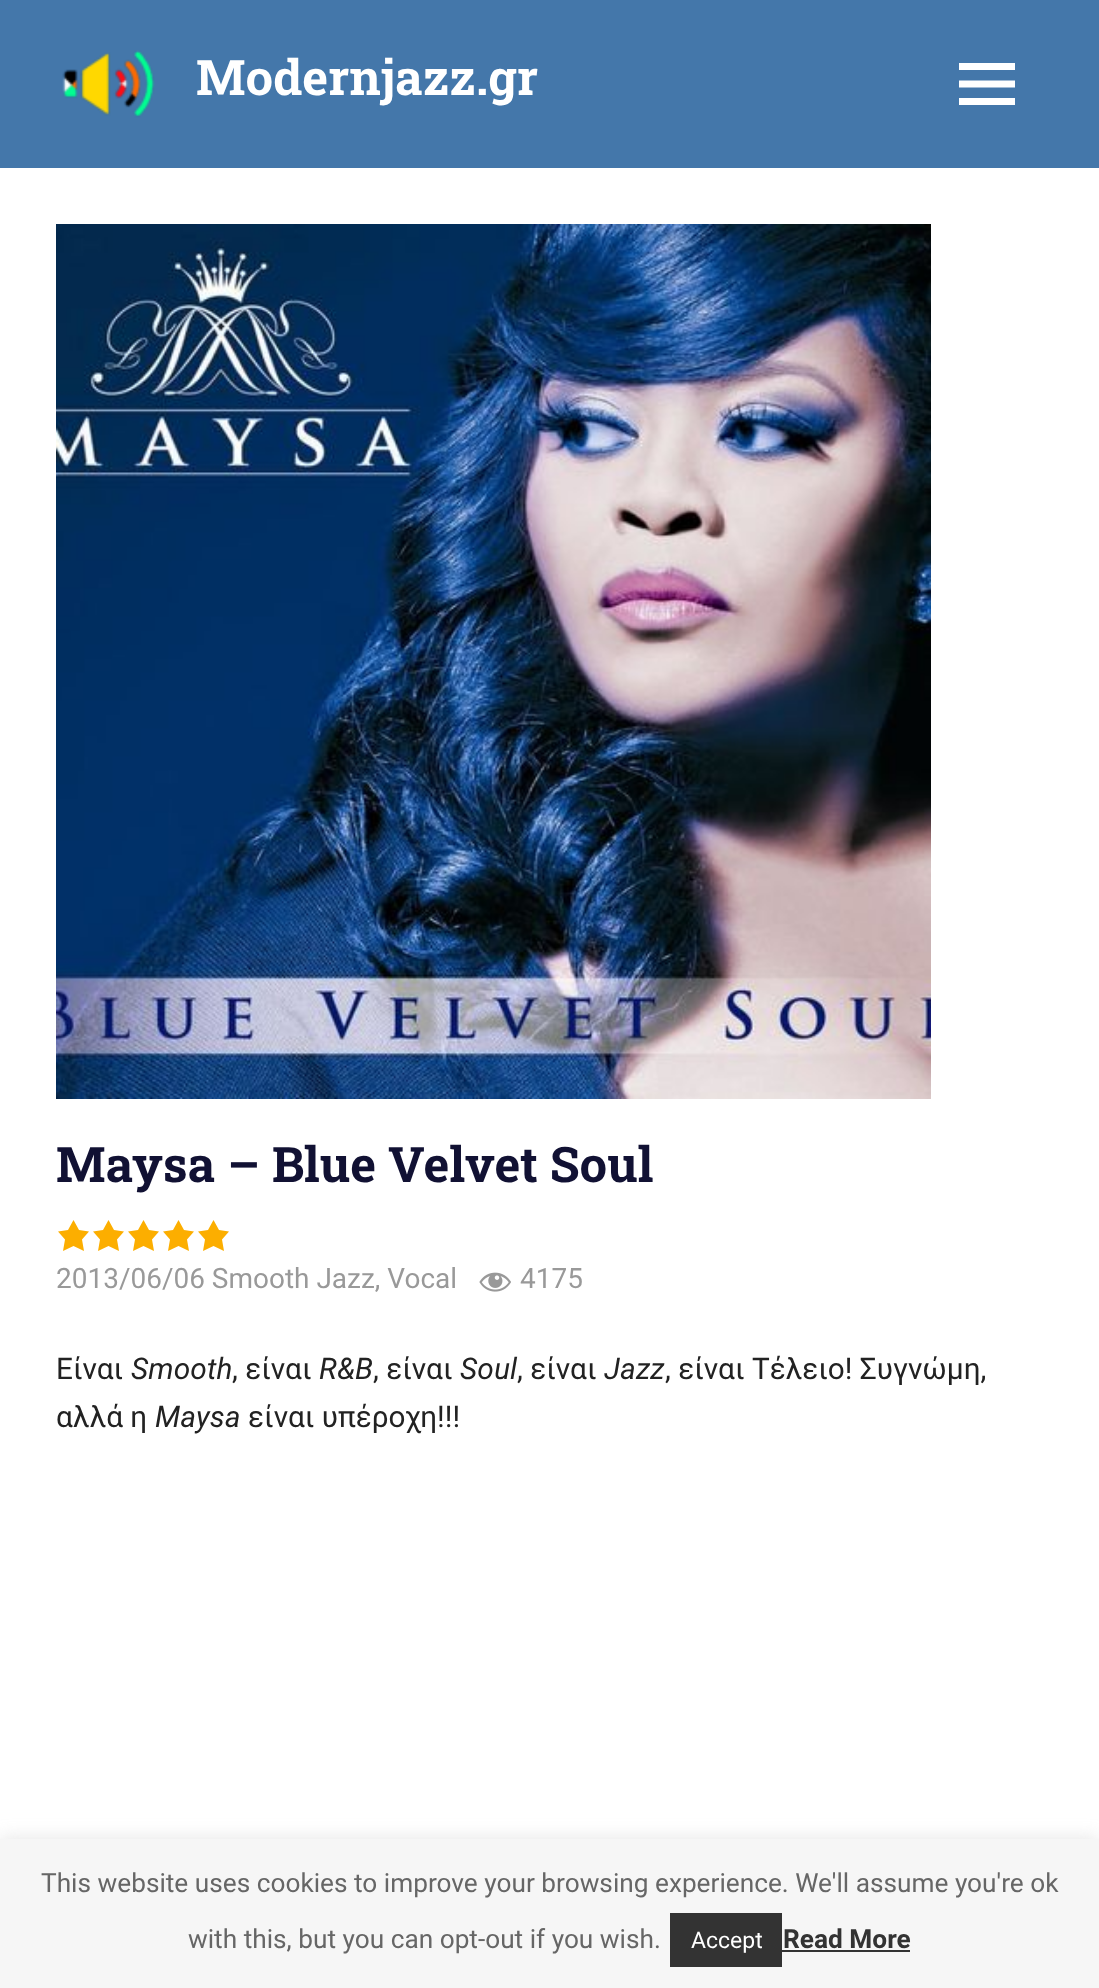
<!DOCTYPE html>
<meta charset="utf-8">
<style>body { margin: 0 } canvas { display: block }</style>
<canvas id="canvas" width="1099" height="1988"></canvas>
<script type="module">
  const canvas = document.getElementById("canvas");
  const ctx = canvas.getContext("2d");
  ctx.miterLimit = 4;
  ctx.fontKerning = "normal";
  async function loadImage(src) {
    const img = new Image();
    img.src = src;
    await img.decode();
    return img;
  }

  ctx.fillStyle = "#ffffff";
  ctx.fillRect(0, 0, 1099, 1988);
  ctx.fillStyle = "#4477aa";
  ctx.fillRect(0, 0, 1099, 168);
  ctx.drawImage(await loadImage("img1.png"), 62, 50, 93, 68);
  ctx.font = "bold 49px Roboto Slab";
  ctx.fillStyle = "#ffffff";
  ctx.fillText("Modernjazz.gr", 196, 95);
  ctx.drawImage(await loadImage("img2.png"), 959, 63, 56, 42);
  ctx.drawImage(await loadImage("img3.png"), 56, 224, 875, 875);
  ctx.fillStyle = "#111133";
  ctx.fillText("Maysa – Blue Velvet Soul", 56, 1182);
  ctx.fillStyle = "#fcae00";
  ctx.beginPath();
  ctx.moveTo(73.5, 1220);
  ctx.lineTo(79, 1230);
  ctx.lineTo(89, 1231.5);
  ctx.lineTo(82, 1239.5);
  ctx.lineTo(84, 1251);
  ctx.lineTo(73.5, 1246);
  ctx.lineTo(63, 1251);
  ctx.lineTo(65, 1239.5);
  ctx.lineTo(58, 1231.5);
  ctx.lineTo(68, 1230);
  ctx.closePath();
  ctx.fill();
  ctx.beginPath();
  ctx.moveTo(108.5, 1220);
  ctx.lineTo(114, 1230);
  ctx.lineTo(124, 1231.5);
  ctx.lineTo(117, 1239.5);
  ctx.lineTo(119, 1251);
  ctx.lineTo(108.5, 1246);
  ctx.lineTo(98, 1251);
  ctx.lineTo(100, 1239.5);
  ctx.lineTo(93, 1231.5);
  ctx.lineTo(103, 1230);
  ctx.closePath();
  ctx.fill();
  ctx.beginPath();
  ctx.moveTo(143.5, 1220);
  ctx.lineTo(149, 1230);
  ctx.lineTo(159, 1231.5);
  ctx.lineTo(152, 1239.5);
  ctx.lineTo(154, 1251);
  ctx.lineTo(143.5, 1246);
  ctx.lineTo(133, 1251);
  ctx.lineTo(135, 1239.5);
  ctx.lineTo(128, 1231.5);
  ctx.lineTo(138, 1230);
  ctx.closePath();
  ctx.fill();
  ctx.beginPath();
  ctx.moveTo(178.5, 1220);
  ctx.lineTo(184, 1230);
  ctx.lineTo(194, 1231.5);
  ctx.lineTo(187, 1239.5);
  ctx.lineTo(189, 1251);
  ctx.lineTo(178.5, 1246);
  ctx.lineTo(168, 1251);
  ctx.lineTo(170, 1239.5);
  ctx.lineTo(163, 1231.5);
  ctx.lineTo(173, 1230);
  ctx.closePath();
  ctx.fill();
  ctx.beginPath();
  ctx.moveTo(213.5, 1220);
  ctx.lineTo(219, 1230);
  ctx.lineTo(229, 1231.5);
  ctx.lineTo(222, 1239.5);
  ctx.lineTo(224, 1251);
  ctx.lineTo(213.5, 1246);
  ctx.lineTo(203, 1251);
  ctx.lineTo(205, 1239.5);
  ctx.lineTo(198, 1231.5);
  ctx.lineTo(208, 1230);
  ctx.closePath();
  ctx.fill();
  ctx.font = "28px Roboto";
  ctx.fillStyle = "#999999";
  ctx.fillText("2013/06/06 Smooth Jazz, Vocal", 56, 1288);
  ctx.drawImage(await loadImage("img4.png"), 479, 1272, 32, 20);
  ctx.fillText("4175", 520, 1288);
  ctx.font = "29.75px Roboto";
  ctx.fillStyle = "#222222";
  ctx.fillText("Είναι", 56, 1379);
  ctx.font = "italic 29.75px Roboto";
  ctx.fillText("Smooth", 131, 1379);
  ctx.font = "29.75px Roboto";
  ctx.fillText(", είναι", 232, 1379);
  ctx.font = "italic 29.75px Roboto";
  ctx.fillText("R&B", 319, 1379);
  ctx.font = "29.75px Roboto";
  ctx.fillText(", είναι", 373, 1379);
  ctx.font = "italic 29.75px Roboto";
  ctx.fillText("Soul", 460, 1379);
  ctx.font = "29.75px Roboto";
  ctx.fillText(", είναι", 517, 1379);
  ctx.font = "italic 29.75px Roboto";
  ctx.fillText("Jazz", 604, 1379);
  ctx.font = "29.75px Roboto";
  ctx.fillText(", είναι Τέλειο! Συγνώμη,", 665, 1379);
  ctx.fillText("αλλά η", 56, 1427);
  ctx.font = "italic 29.75px Roboto";
  ctx.fillText("Maysa", 155, 1427);
  ctx.font = "29.75px Roboto";
  ctx.fillText("είναι υπέροχη!!!", 248, 1427);
  ctx.fillStyle = "rgba(172, 171, 171, 0.3)";
  ctx.filter = "blur(9px)";
  ctx.beginPath();
  ctx.rect(0, 1838, 1099, 148);
  ctx.fill();
  ctx.filter = "none";
  ctx.fillStyle = "#f6f6f6";
  ctx.fillRect(0, 1839, 1099, 149);
  ctx.font = "26.25px Roboto";
  ctx.fillStyle = "#666666";
  ctx.fillText("This website uses cookies to improve your browsing experience. We'll assume you're ok", 41, 1892);
  ctx.fillText("with this, but you can opt-out if you wish.", 188, 1948);
  ctx.fillStyle = "#333333";
  ctx.fillRect(670, 1913, 112, 54);
  ctx.font = "23px Roboto";
  ctx.fillStyle = "#ffffff";
  ctx.fillText("Accept", 691, 1948);
  ctx.font = "bold 26.25px Roboto";
  ctx.fillStyle = "#333333";
  ctx.fillText("Read More", 783, 1948);
  ctx.fillRect(782, 1950, 128, 2);
</script>
